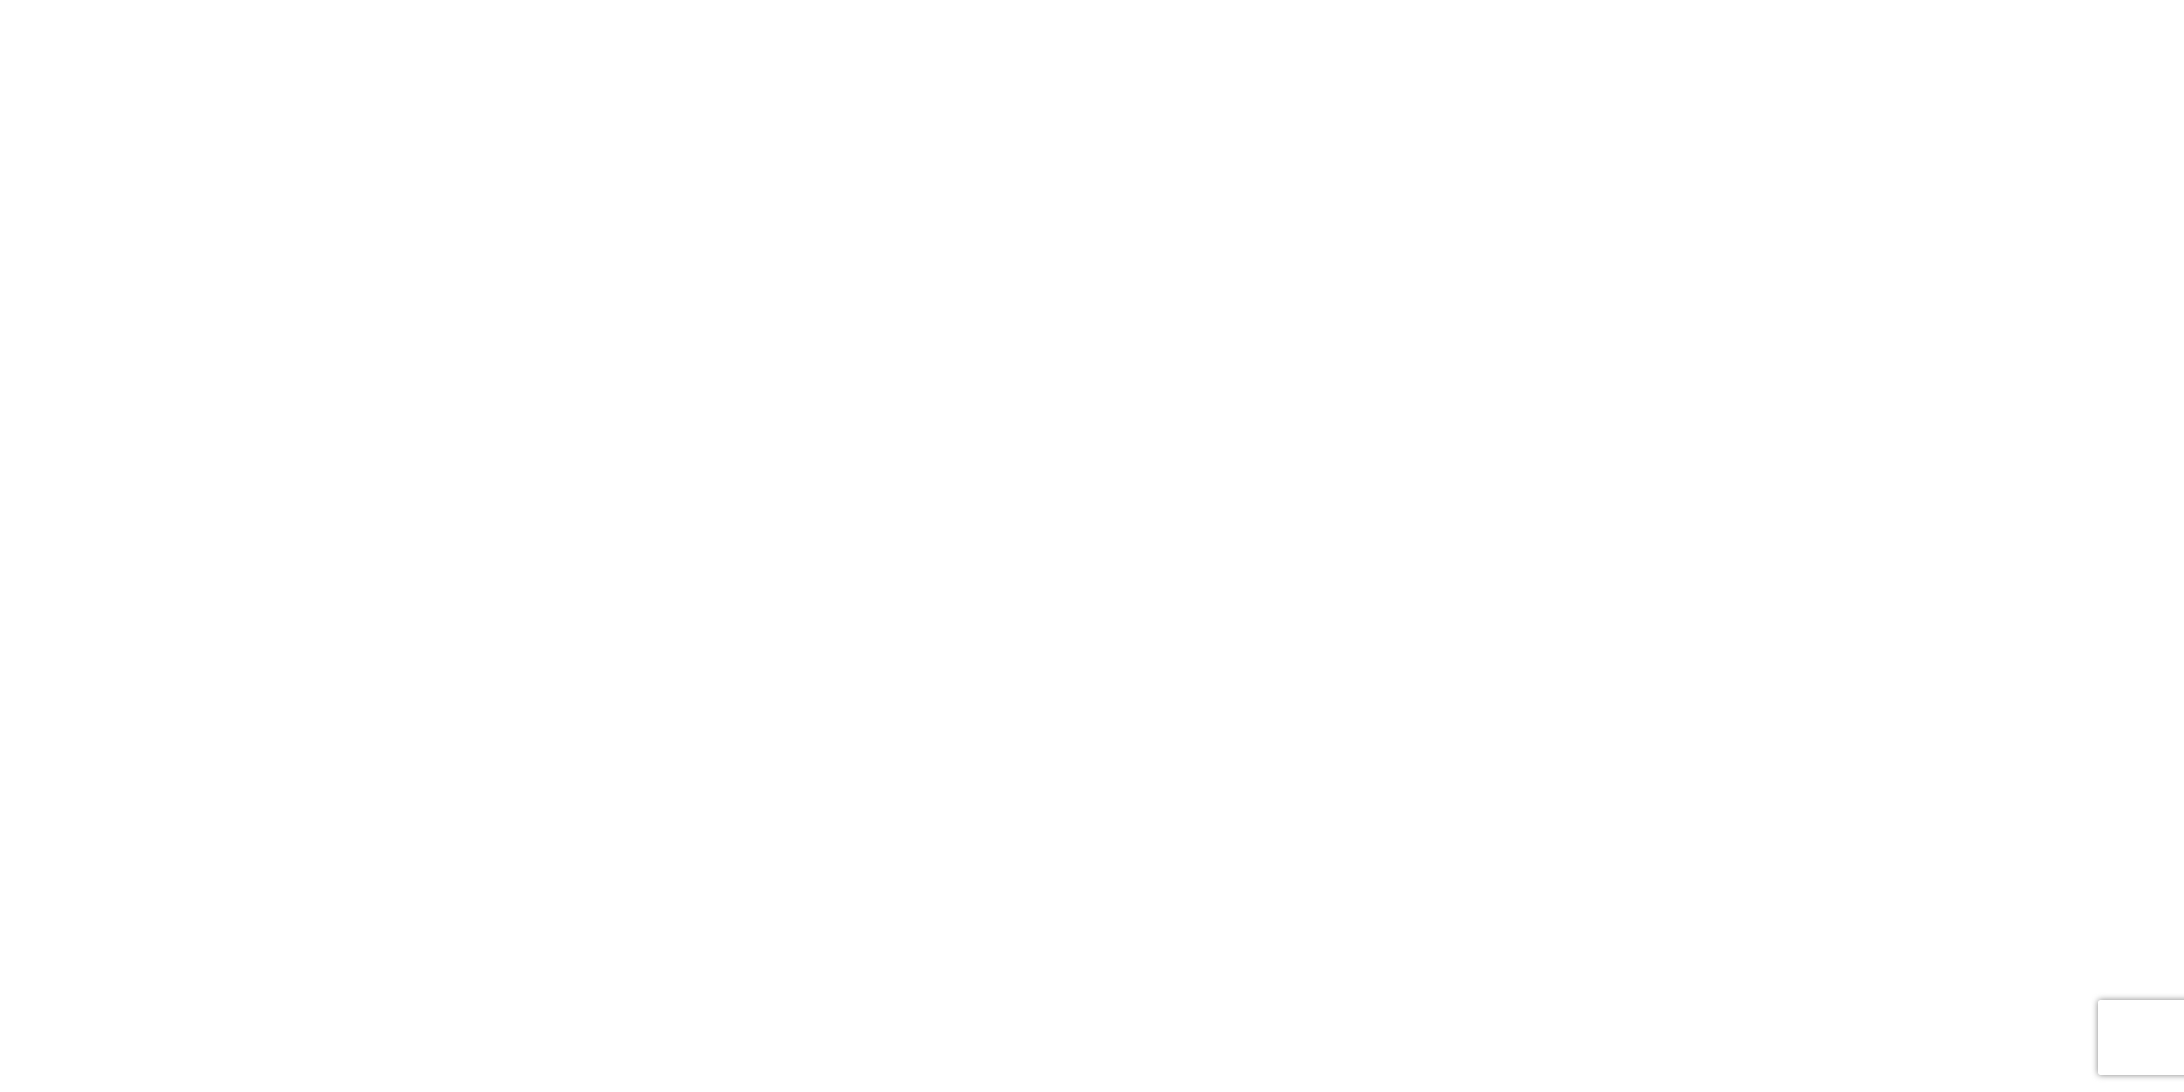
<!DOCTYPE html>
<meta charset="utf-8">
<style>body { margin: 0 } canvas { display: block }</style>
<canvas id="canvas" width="2184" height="1092"></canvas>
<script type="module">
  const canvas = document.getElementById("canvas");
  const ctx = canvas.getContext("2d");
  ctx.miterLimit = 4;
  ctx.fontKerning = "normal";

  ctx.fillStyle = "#ffffff";
  ctx.fillRect(0, 0, 2184, 1092);
  ctx.save();
  ctx.beginPath();
  ctx.moveTo(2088, 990);
  ctx.lineTo(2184, 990);
  ctx.lineTo(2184, 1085);
  ctx.lineTo(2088, 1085);
  ctx.closePath();
  ctx.moveTo(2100.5, 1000);
  ctx.lineTo(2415.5, 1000);
  ctx.bezierCurveTo(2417, 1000, 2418, 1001, 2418, 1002.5);
  ctx.lineTo(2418, 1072.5);
  ctx.bezierCurveTo(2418, 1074, 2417, 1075, 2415.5, 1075);
  ctx.lineTo(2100.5, 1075);
  ctx.bezierCurveTo(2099, 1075, 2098, 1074, 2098, 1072.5);
  ctx.lineTo(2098, 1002.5);
  ctx.bezierCurveTo(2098, 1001, 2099, 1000, 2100.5, 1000);
  ctx.closePath();
  ctx.clip("evenodd");
  ctx.fillStyle = "#808080";
  ctx.filter = "blur(3px)";
  ctx.beginPath();
  ctx.roundRect(2098, 1000, 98, 75, 2.5);
  ctx.fill();
  ctx.filter = "none";
  ctx.restore();
</script>
